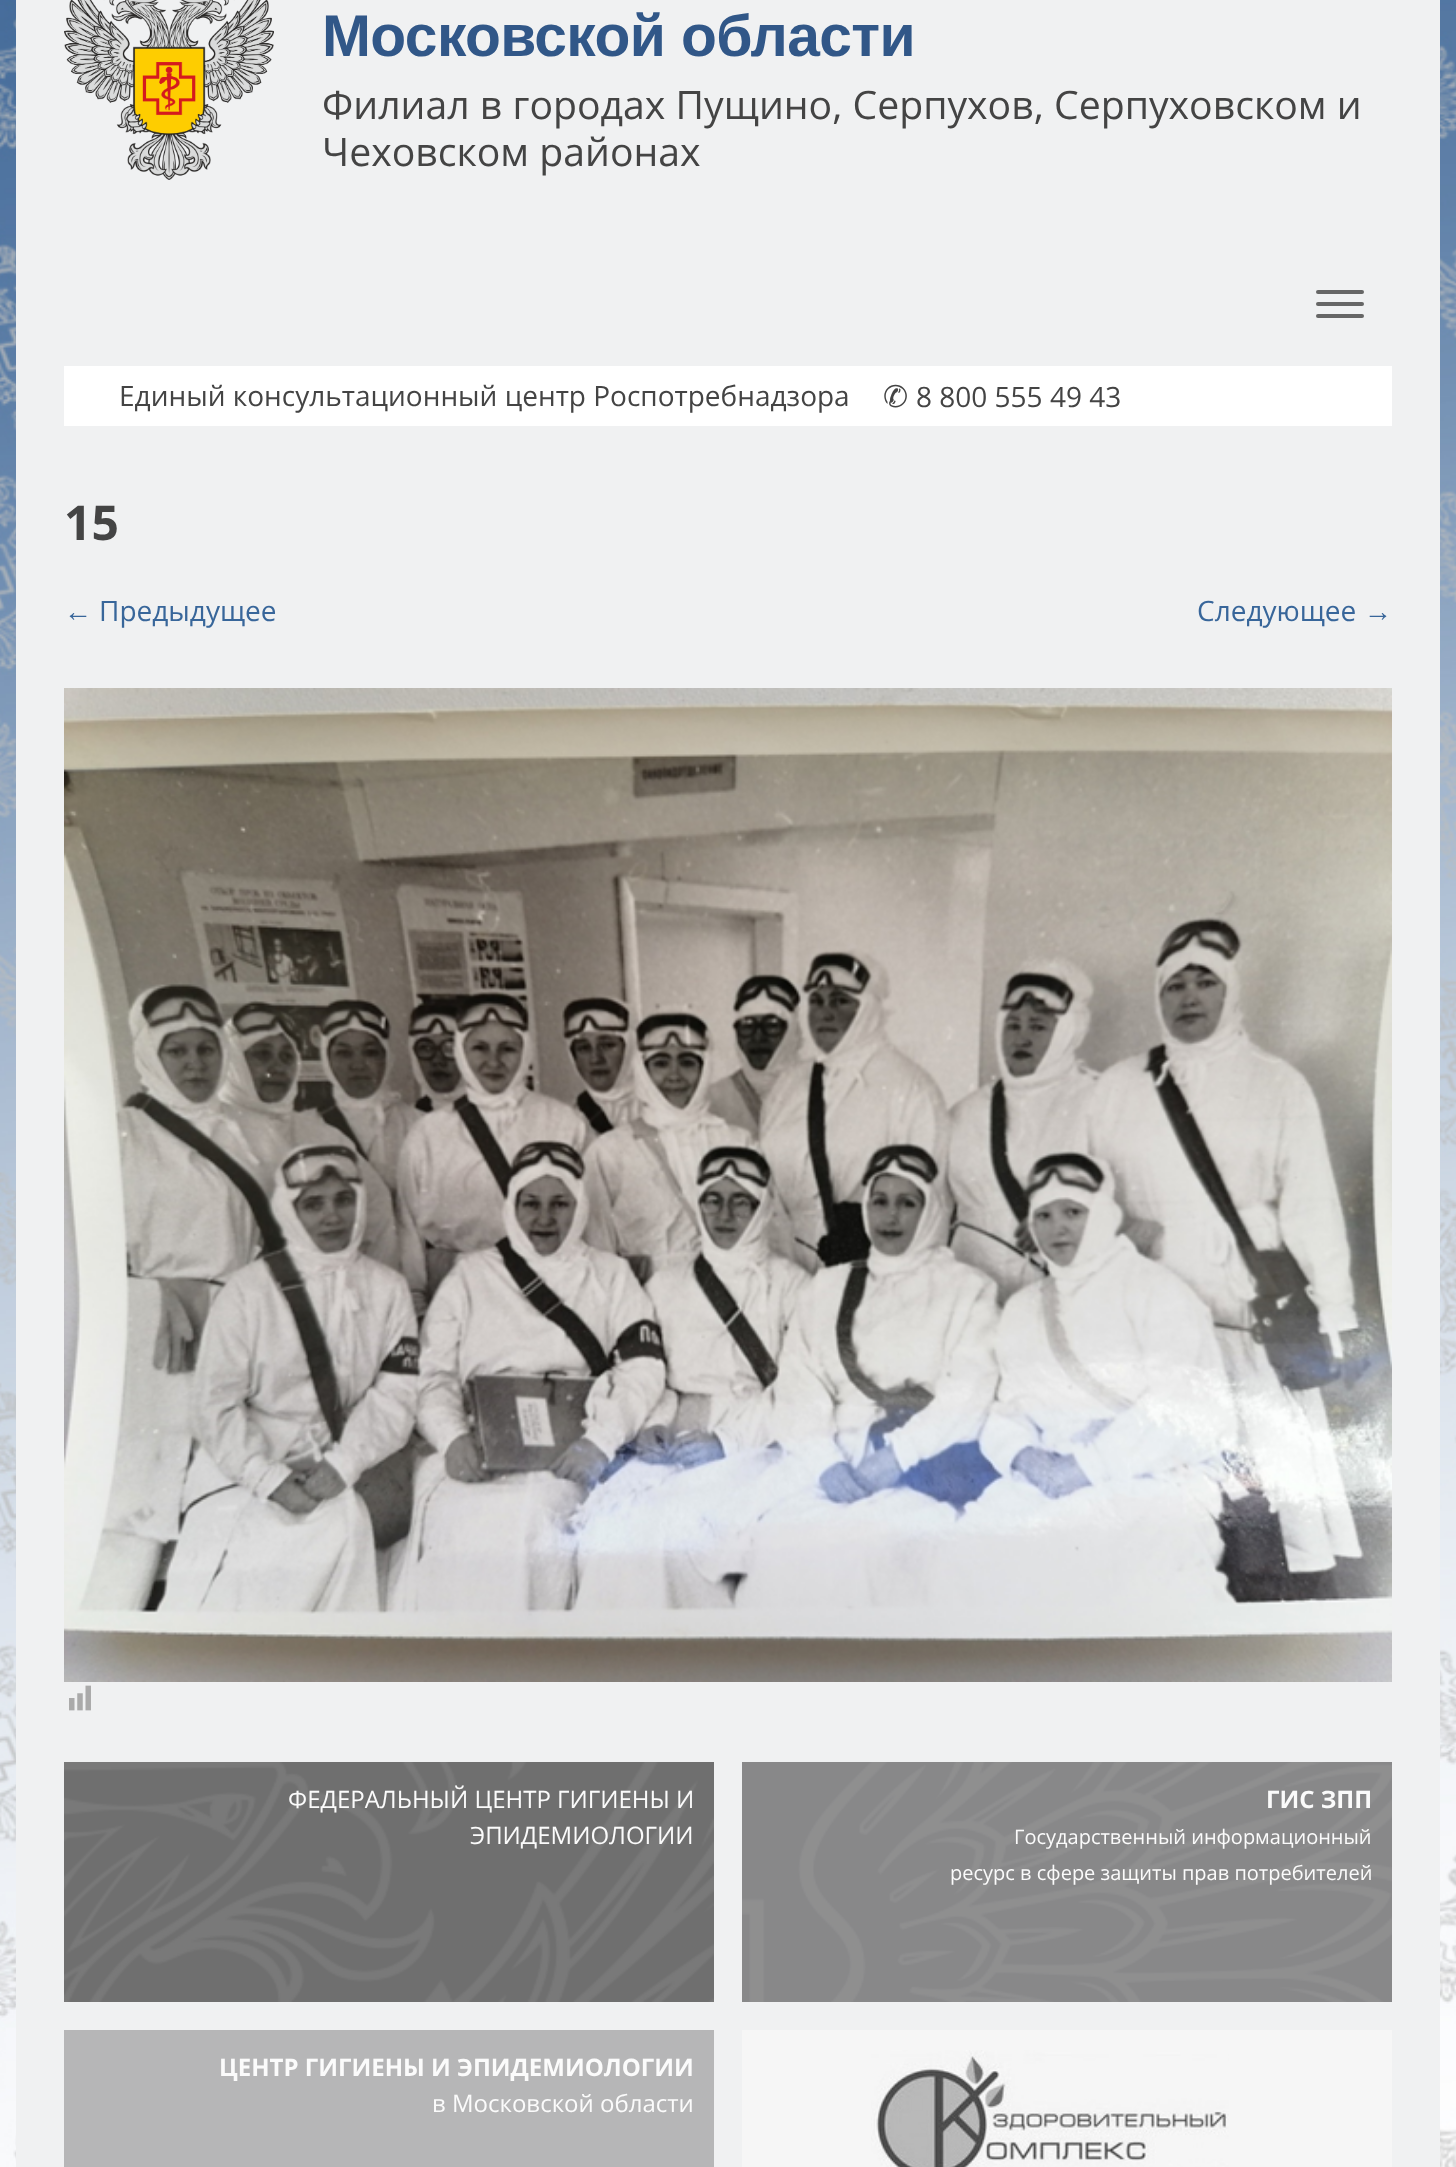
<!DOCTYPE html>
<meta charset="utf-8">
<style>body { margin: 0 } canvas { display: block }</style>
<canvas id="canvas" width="1456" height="2167"></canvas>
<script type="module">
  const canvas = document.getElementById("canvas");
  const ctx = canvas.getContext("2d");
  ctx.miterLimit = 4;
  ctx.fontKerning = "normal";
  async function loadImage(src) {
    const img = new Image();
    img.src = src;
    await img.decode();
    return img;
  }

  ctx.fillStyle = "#ffffff";
  ctx.fillRect(0, 0, 1456, 2167);
  ctx.drawImage(await loadImage("img1.png"), 0, 0, 1456, 2167);
  ctx.fillStyle = "#f0f1f2";
  ctx.fillRect(16, 0, 1424, 2167);
  ctx.drawImage(await loadImage("img2.png"), 64, 0, 210, 180);
  ctx.letterSpacing = "-0.6px";
  ctx.font = "bold 58.75px Liberation Sans";
  ctx.fillStyle = "#315788";
  ctx.fillText("Московской области", 322, 56);
  ctx.letterSpacing = "0px";
  ctx.font = "39.2px Open Sans";
  ctx.fillStyle = "#444444";
  ctx.fillText("Филиал в городах Пущино, Серпухов, Серпуховском и", 322, 119);
  ctx.fillText("Чеховском районах", 322, 166);
  ctx.fillStyle = "#666666";
  ctx.beginPath();
  ctx.roundRect(1316, 290, 48, 4, 2);
  ctx.fill();
  ctx.beginPath();
  ctx.roundRect(1316, 302, 48, 4, 2);
  ctx.fill();
  ctx.beginPath();
  ctx.roundRect(1316, 314, 48, 4, 2);
  ctx.fill();
  ctx.fillStyle = "#ffffff";
  ctx.fillRect(64, 366, 1328, 60);
  ctx.font = "28px Open Sans";
  ctx.fillStyle = "#444444";
  ctx.fillText("Единый консультационный центр Роспотребнадзора", 119, 406);
  ctx.font = "30px DejaVu Sans";
  ctx.fillText("✆", 883, 407);
  ctx.font = "28px Open Sans";
  ctx.fillText("8 800 555 49 43", 916, 407);
  ctx.font = "bold 48px Open Sans";
  ctx.fillText("15", 64, 540);
  ctx.font = "28px Liberation Sans";
  ctx.fillStyle = "#38669a";
  ctx.fillText("←", 64, 621);
  ctx.font = "28px Open Sans";
  ctx.fillText("Предыдущее", 99, 621);
  ctx.fillText("Следующее", 1197, 621);
  ctx.font = "28px Liberation Sans";
  ctx.fillText("→", 1364, 621);
  ctx.drawImage(await loadImage("img3.png"), 64, 688, 1328, 994);
  ctx.drawImage(await loadImage("img4.png"), 69, 1685, 22, 26);
  ctx.fillStyle = "#6f6f6f";
  ctx.fillRect(64, 1762, 650, 240);
  ctx.drawImage(await loadImage("img5.png"), 64, 1762, 650, 240);
  ctx.font = "24px Open Sans";
  ctx.fillStyle = "#fbfbfb";
  ctx.fillText("ФЕДЕРАЛЬНЫЙ ЦЕНТР ГИГИЕНЫ И", 288, 1808);
  ctx.fillText("ЭПИДЕМИОЛОГИИ", 470, 1844);
  ctx.fillStyle = "#888889";
  ctx.fillRect(742, 1762, 650, 240);
  ctx.drawImage(await loadImage("img6.png"), 742, 1762, 650, 240);
  ctx.font = "bold 24px Open Sans";
  ctx.fillStyle = "#fbfbfb";
  ctx.fillText("ГИС ЗПП", 1266, 1808);
  ctx.font = "20px Open Sans";
  ctx.fillText("Государственный информационный", 1014, 1844);
  ctx.fillText("ресурс в сфере защиты прав потребителей", 950, 1880);
  ctx.fillStyle = "#b6b6b7";
  ctx.fillRect(64, 2030, 650, 137);
  ctx.font = "bold 24px Open Sans";
  ctx.fillStyle = "#fbfbfb";
  ctx.fillText("ЦЕНТР ГИГИЕНЫ И ЭПИДЕМИОЛОГИИ", 219, 2076);
  ctx.font = "24px Open Sans";
  ctx.fillText("в Московской области", 432, 2112);
  ctx.fillStyle = "#f6f6f6";
  ctx.fillRect(742, 2030, 650, 137);
  ctx.drawImage(await loadImage("img7.png"), 871, 2050, 358, 117);
</script>
